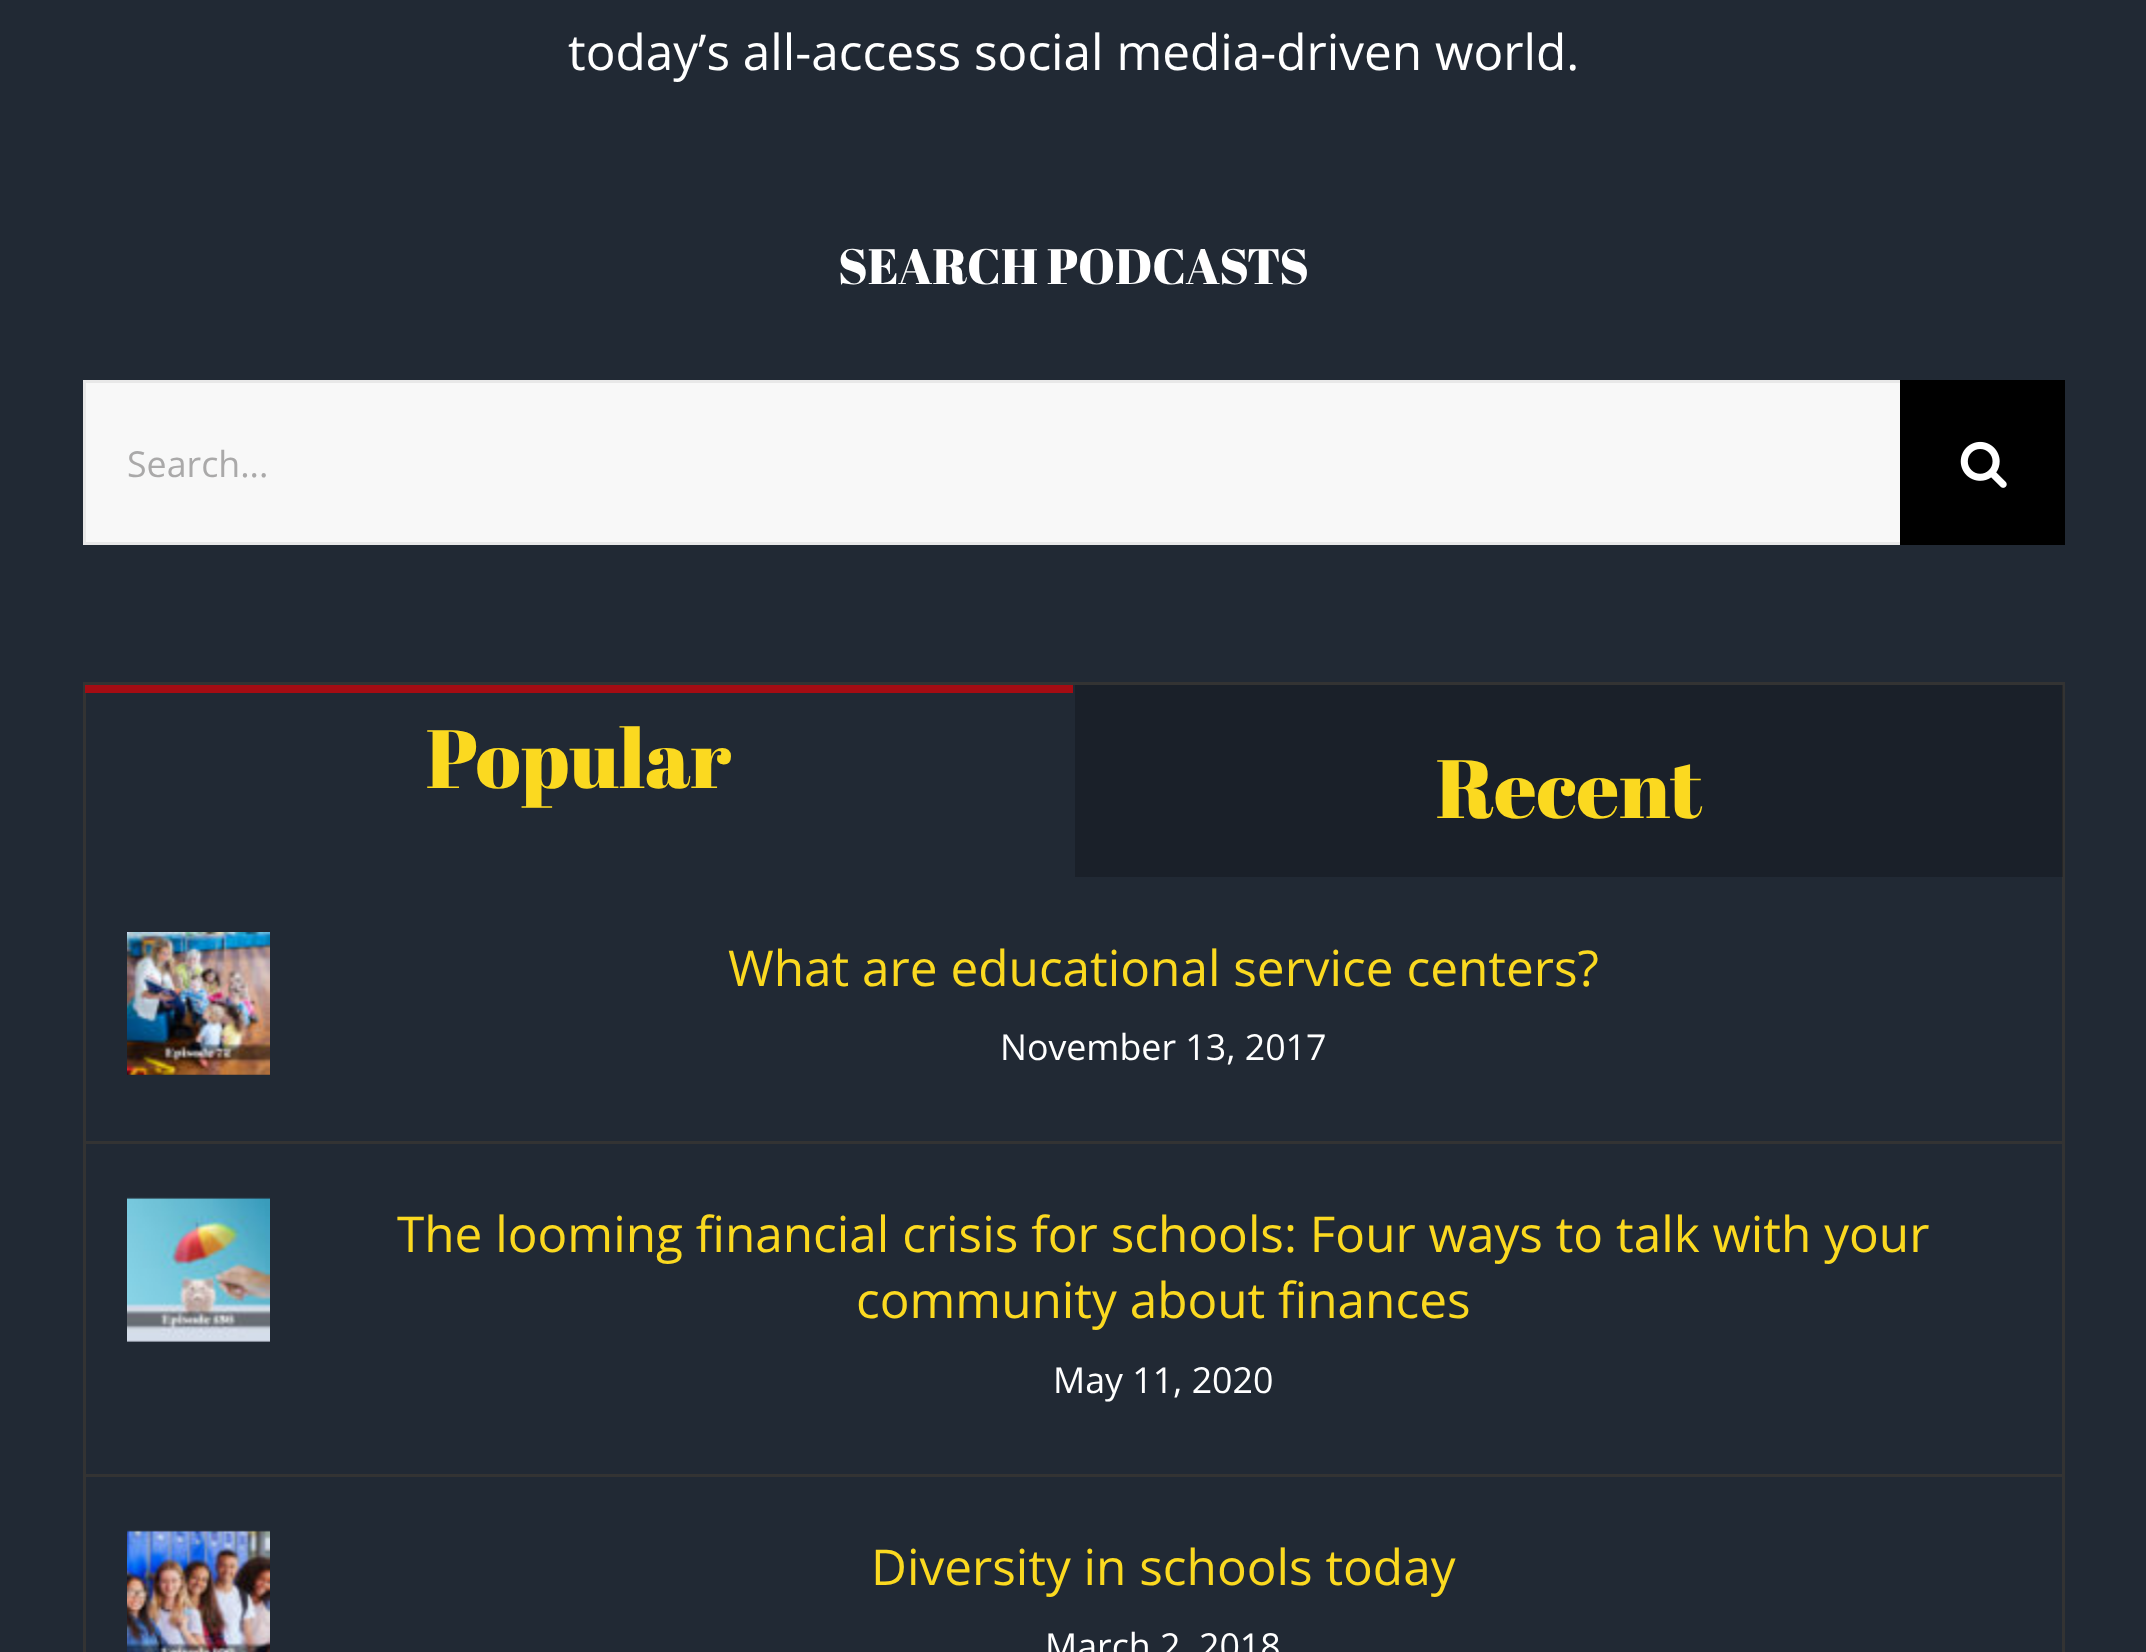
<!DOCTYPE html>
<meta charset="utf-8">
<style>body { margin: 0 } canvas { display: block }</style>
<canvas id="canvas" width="2146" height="1652"></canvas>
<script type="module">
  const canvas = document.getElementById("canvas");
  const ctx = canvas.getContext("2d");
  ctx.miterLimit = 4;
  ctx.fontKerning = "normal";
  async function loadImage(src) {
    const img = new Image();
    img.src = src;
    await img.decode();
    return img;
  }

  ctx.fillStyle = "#212934";
  ctx.fillRect(0, 0, 2146, 1652);
  ctx.font = "49.5px Open Sans";
  ctx.fillStyle = "#ffffff";
  ctx.fillText("today’s all-access social media-driven world.", 568, 70);
  ctx.font = "49.5px Abril Fatface";
  ctx.fillText("SEARCH PODCASTS", 838, 284);
  ctx.fillStyle = "#f8f8f8";
  ctx.fillRect(86, 383, 1814, 159);
  ctx.fillStyle = "#e8e8e8";
  ctx.fillRect(83, 380, 1817, 3);
  ctx.fillRect(83, 542, 1817, 3);
  ctx.fillRect(83, 380, 3, 165);
  ctx.font = "35.75px Open Sans";
  ctx.fillStyle = "#aaa9a9";
  ctx.fillText("Search...", 127, 477);
  ctx.fillStyle = "#000000";
  ctx.fillRect(1900, 380, 165, 165);
  ctx.drawImage(await loadImage("img1.png"), 1960, 441, 47, 47);
  ctx.strokeStyle = "#333333";
  ctx.lineWidth = 3;
  ctx.strokeRect(84.5, 683.5, 1979, 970);
  ctx.fillStyle = "#a40c13";
  ctx.fillRect(85, 685, 988, 8);
  ctx.font = "82.5px Abril Fatface";
  ctx.fillStyle = "#fbd920";
  ctx.fillText("Popular", 426, 788);
  ctx.fillStyle = "rgba(0, 0, 0, 0.2)";
  ctx.fillRect(1075, 685, 988, 192);
  ctx.fillStyle = "#fbd920";
  ctx.fillText("Recent", 1436, 818);
  ctx.fillStyle = "#333333";
  ctx.fillRect(85, 1141, 1978, 3);
  ctx.drawImage(await loadImage("img2.png"), 127, 932, 143, 143);
  ctx.font = "49.5px Open Sans";
  ctx.fillStyle = "#fbd920";
  ctx.fillText("What are educational service centers?", 728, 986);
  ctx.font = "35.75px Open Sans";
  ctx.fillStyle = "#ffffff";
  ctx.fillText("November 13, 2017", 1000, 1060);
  ctx.fillStyle = "#333333";
  ctx.fillRect(85, 1474, 1978, 3);
  ctx.drawImage(await loadImage("img3.png"), 127, 1197, 143, 145);
  ctx.font = "49.5px Open Sans";
  ctx.fillStyle = "#fbd920";
  ctx.fillText("The looming financial crisis for schools: Four ways to talk with your", 397, 1252);
  ctx.fillText("community about finances", 856, 1318);
  ctx.font = "35.75px Open Sans";
  ctx.fillStyle = "#ffffff";
  ctx.fillText("May 11, 2020", 1053, 1393);
  ctx.drawImage(await loadImage("img4.png"), 127, 1530, 143, 122);
  ctx.font = "49.5px Open Sans";
  ctx.fillStyle = "#fbd920";
  ctx.fillText("Diversity in schools today", 871, 1585);
  ctx.font = "35.75px Open Sans";
  ctx.fillStyle = "#ffffff";
  ctx.fillText("March 2, 2018", 1045, 1659);
</script>
